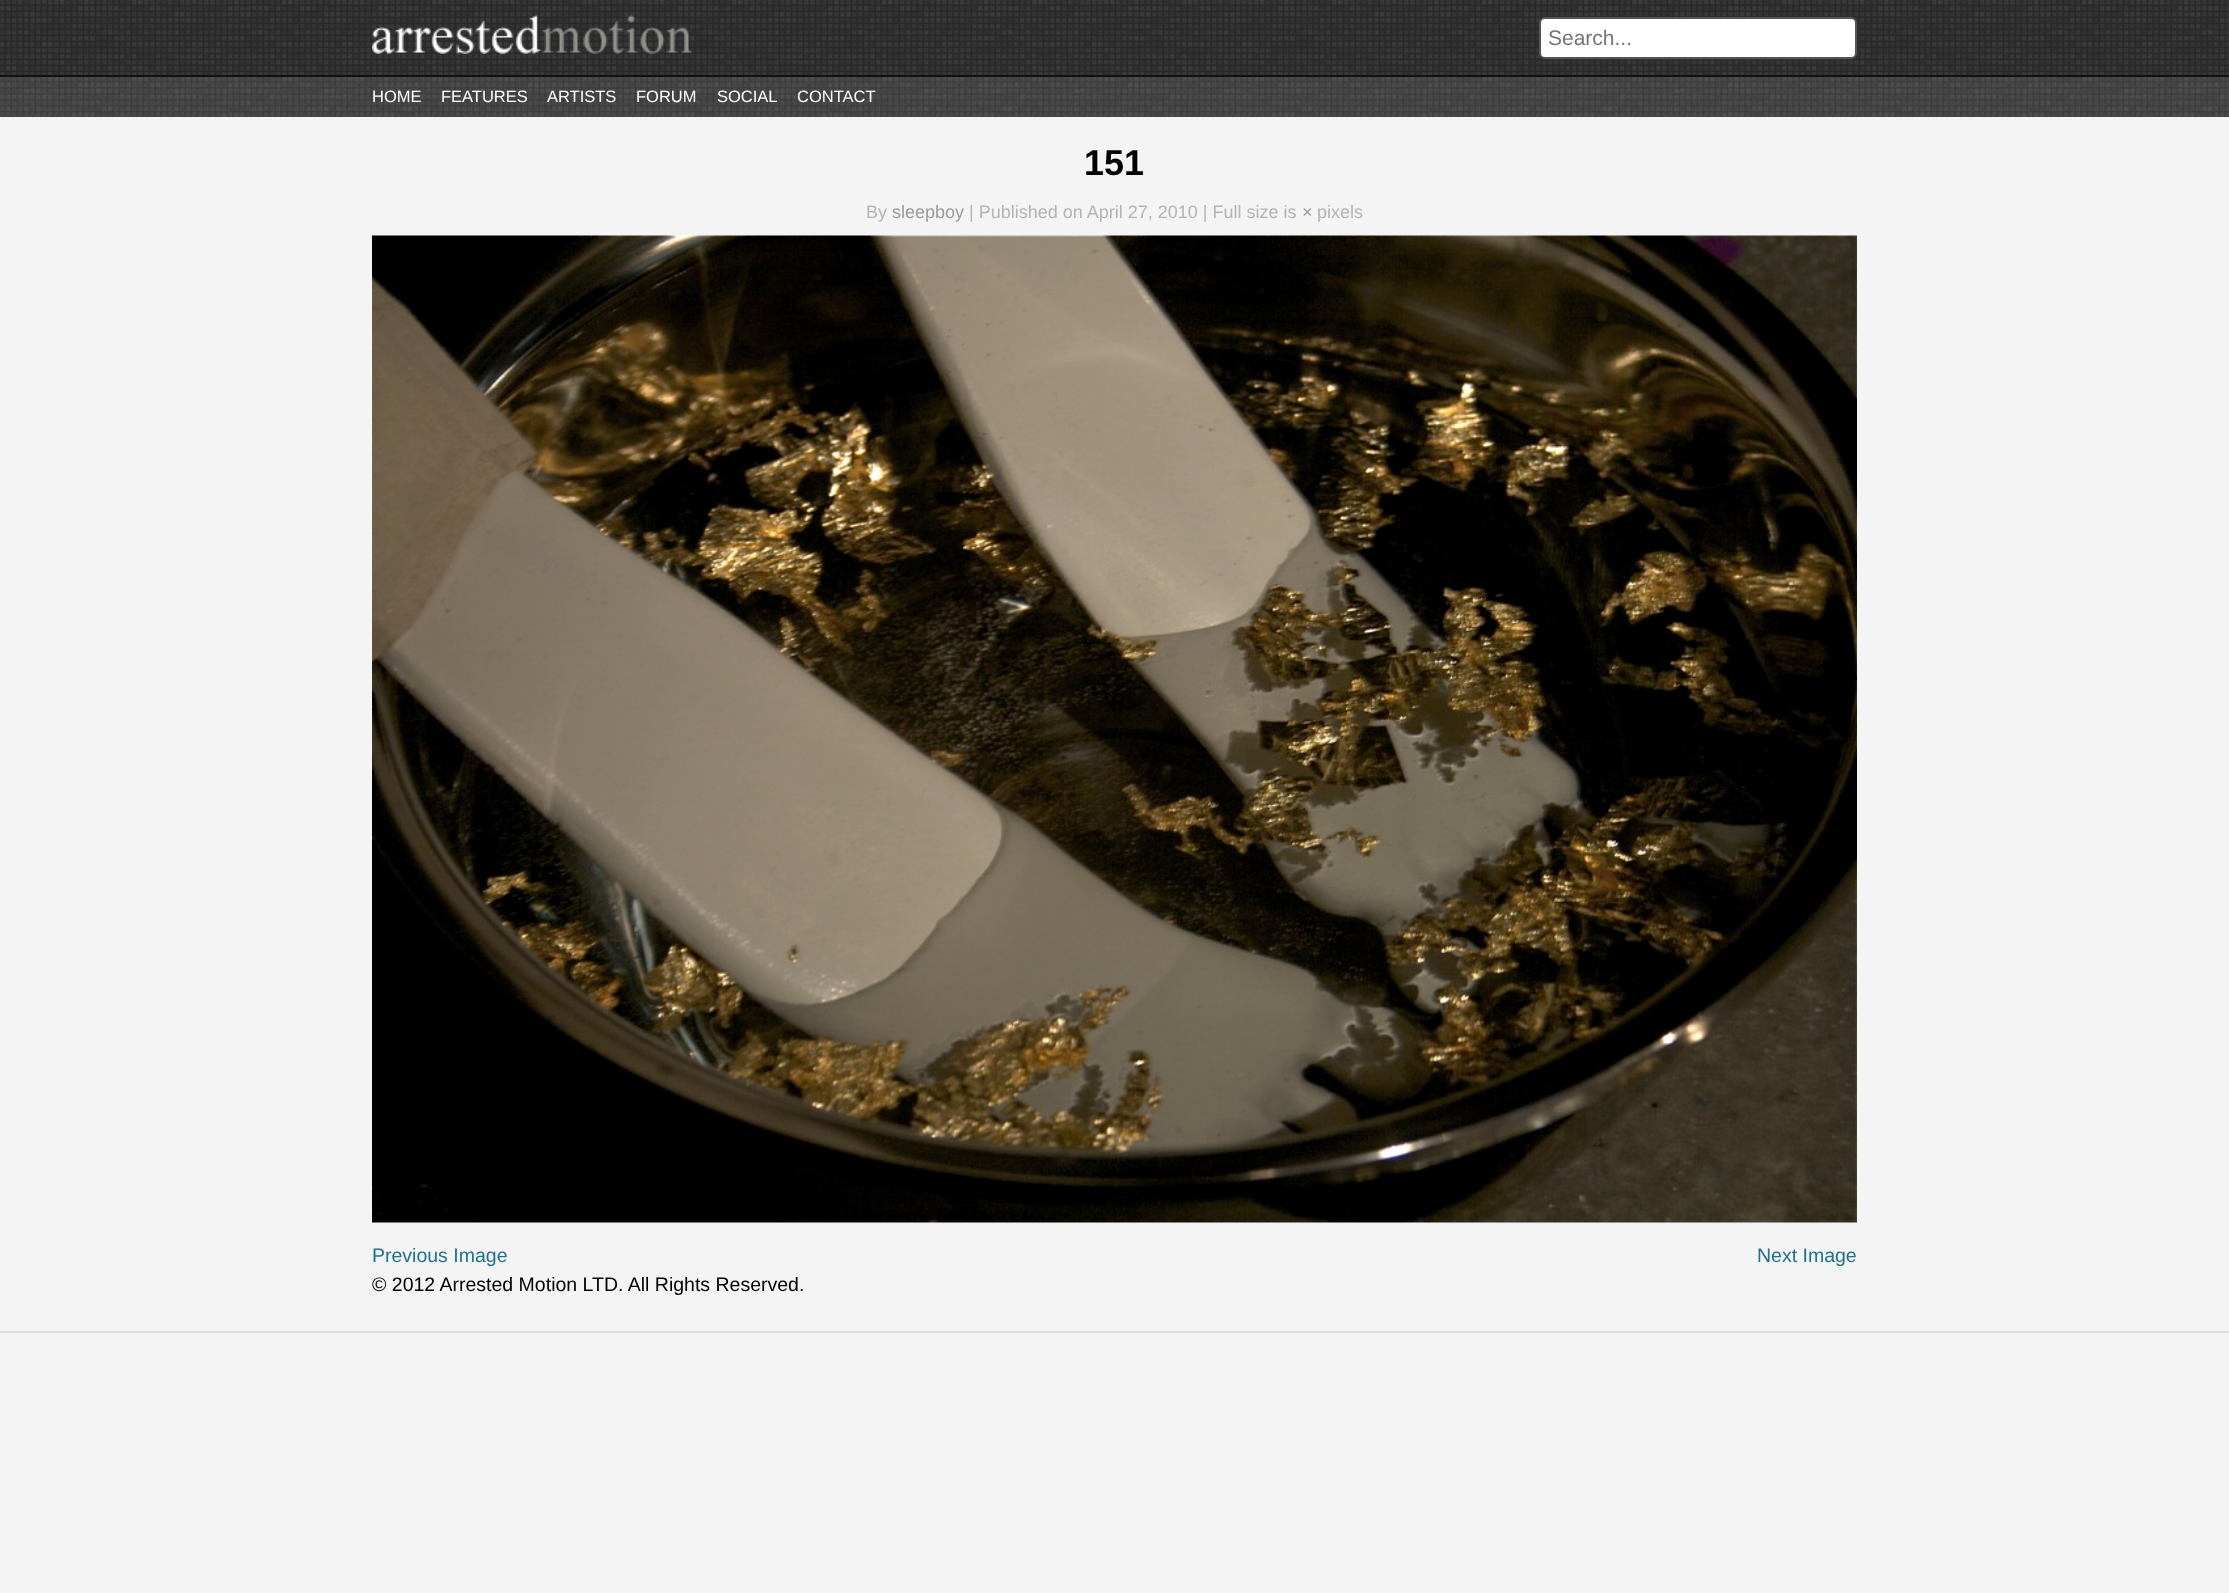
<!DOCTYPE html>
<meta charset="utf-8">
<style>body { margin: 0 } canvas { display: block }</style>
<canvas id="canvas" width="2229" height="1593"></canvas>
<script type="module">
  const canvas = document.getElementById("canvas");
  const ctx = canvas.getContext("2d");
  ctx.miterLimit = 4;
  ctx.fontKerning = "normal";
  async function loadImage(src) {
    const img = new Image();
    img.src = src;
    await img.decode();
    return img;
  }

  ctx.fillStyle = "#f4f4f4";
  ctx.fillRect(0, 0, 2229, 1593);
  ctx.drawImage(await loadImage("img1.png"), 0, 0, 2229, 75);
  ctx.drawImage(await loadImage("img2.png"), 372, 15, 321, 39);
  ctx.fillStyle = "#333333";
  ctx.filter = "blur(1px)";
  ctx.beginPath();
  ctx.roundRect(1541, 18, 318, 42, 6);
  ctx.fill();
  ctx.filter = "none";
  ctx.fillStyle = "#ffffff";
  ctx.beginPath();
  ctx.roundRect(1540, 18, 316, 40, 5);
  ctx.fill();
  ctx.strokeStyle = "#555555";
  ctx.lineWidth = 2;
  ctx.stroke();
  ctx.font = "21px Liberation Sans";
  ctx.fillStyle = "#757575";
  ctx.fillText("Search...", 1548, 45);
  ctx.drawImage(await loadImage("img3.png"), 0, 77, 2229, 40);
  ctx.fillStyle = "#111111";
  ctx.fillRect(0, 75, 2229, 2);
  ctx.font = "16.5px Liberation Sans";
  ctx.fillStyle = "#ffffff";
  ctx.fillText("HOME", 372, 102);
  ctx.fillText("FEATURES", 441, 102);
  ctx.fillText("ARTISTS", 547, 102);
  ctx.fillText("FORUM", 636, 102);
  ctx.fillText("SOCIAL", 717, 102);
  ctx.fillText("CONTACT", 797, 102);
  ctx.font = "bold 36px Liberation Sans";
  ctx.fillStyle = "#000000";
  ctx.fillText("151", 1084, 175);
  ctx.font = "18px Liberation Sans";
  ctx.fillStyle = "#b4b5b0";
  ctx.fillText("By", 866, 218);
  ctx.fillStyle = "#9b9b9b";
  ctx.fillText("sleepboy", 892, 218);
  ctx.fillStyle = "#b4b5b0";
  ctx.fillText("| Published on April 27, 2010 | Full size is", 969, 218);
  ctx.fillStyle = "#9b9b9b";
  ctx.fillText("×", 1302, 218);
  ctx.fillStyle = "#b4b5b0";
  ctx.fillText("pixels", 1317, 218);
  ctx.drawImage(await loadImage("img4.png"), 372, 235, 1485, 988);
  ctx.font = "19.5px Liberation Sans";
  ctx.fillStyle = "#1d718f";
  ctx.fillText("Previous Image", 372, 1262);
  ctx.fillText("Next Image", 1757, 1262);
  ctx.fillStyle = "#000000";
  ctx.fillText("© 2012 Arrested Motion LTD. All Rights Reserved.", 372, 1291);
  ctx.fillStyle = "#dedede";
  ctx.fillRect(0, 1331, 2229, 2);
</script>
